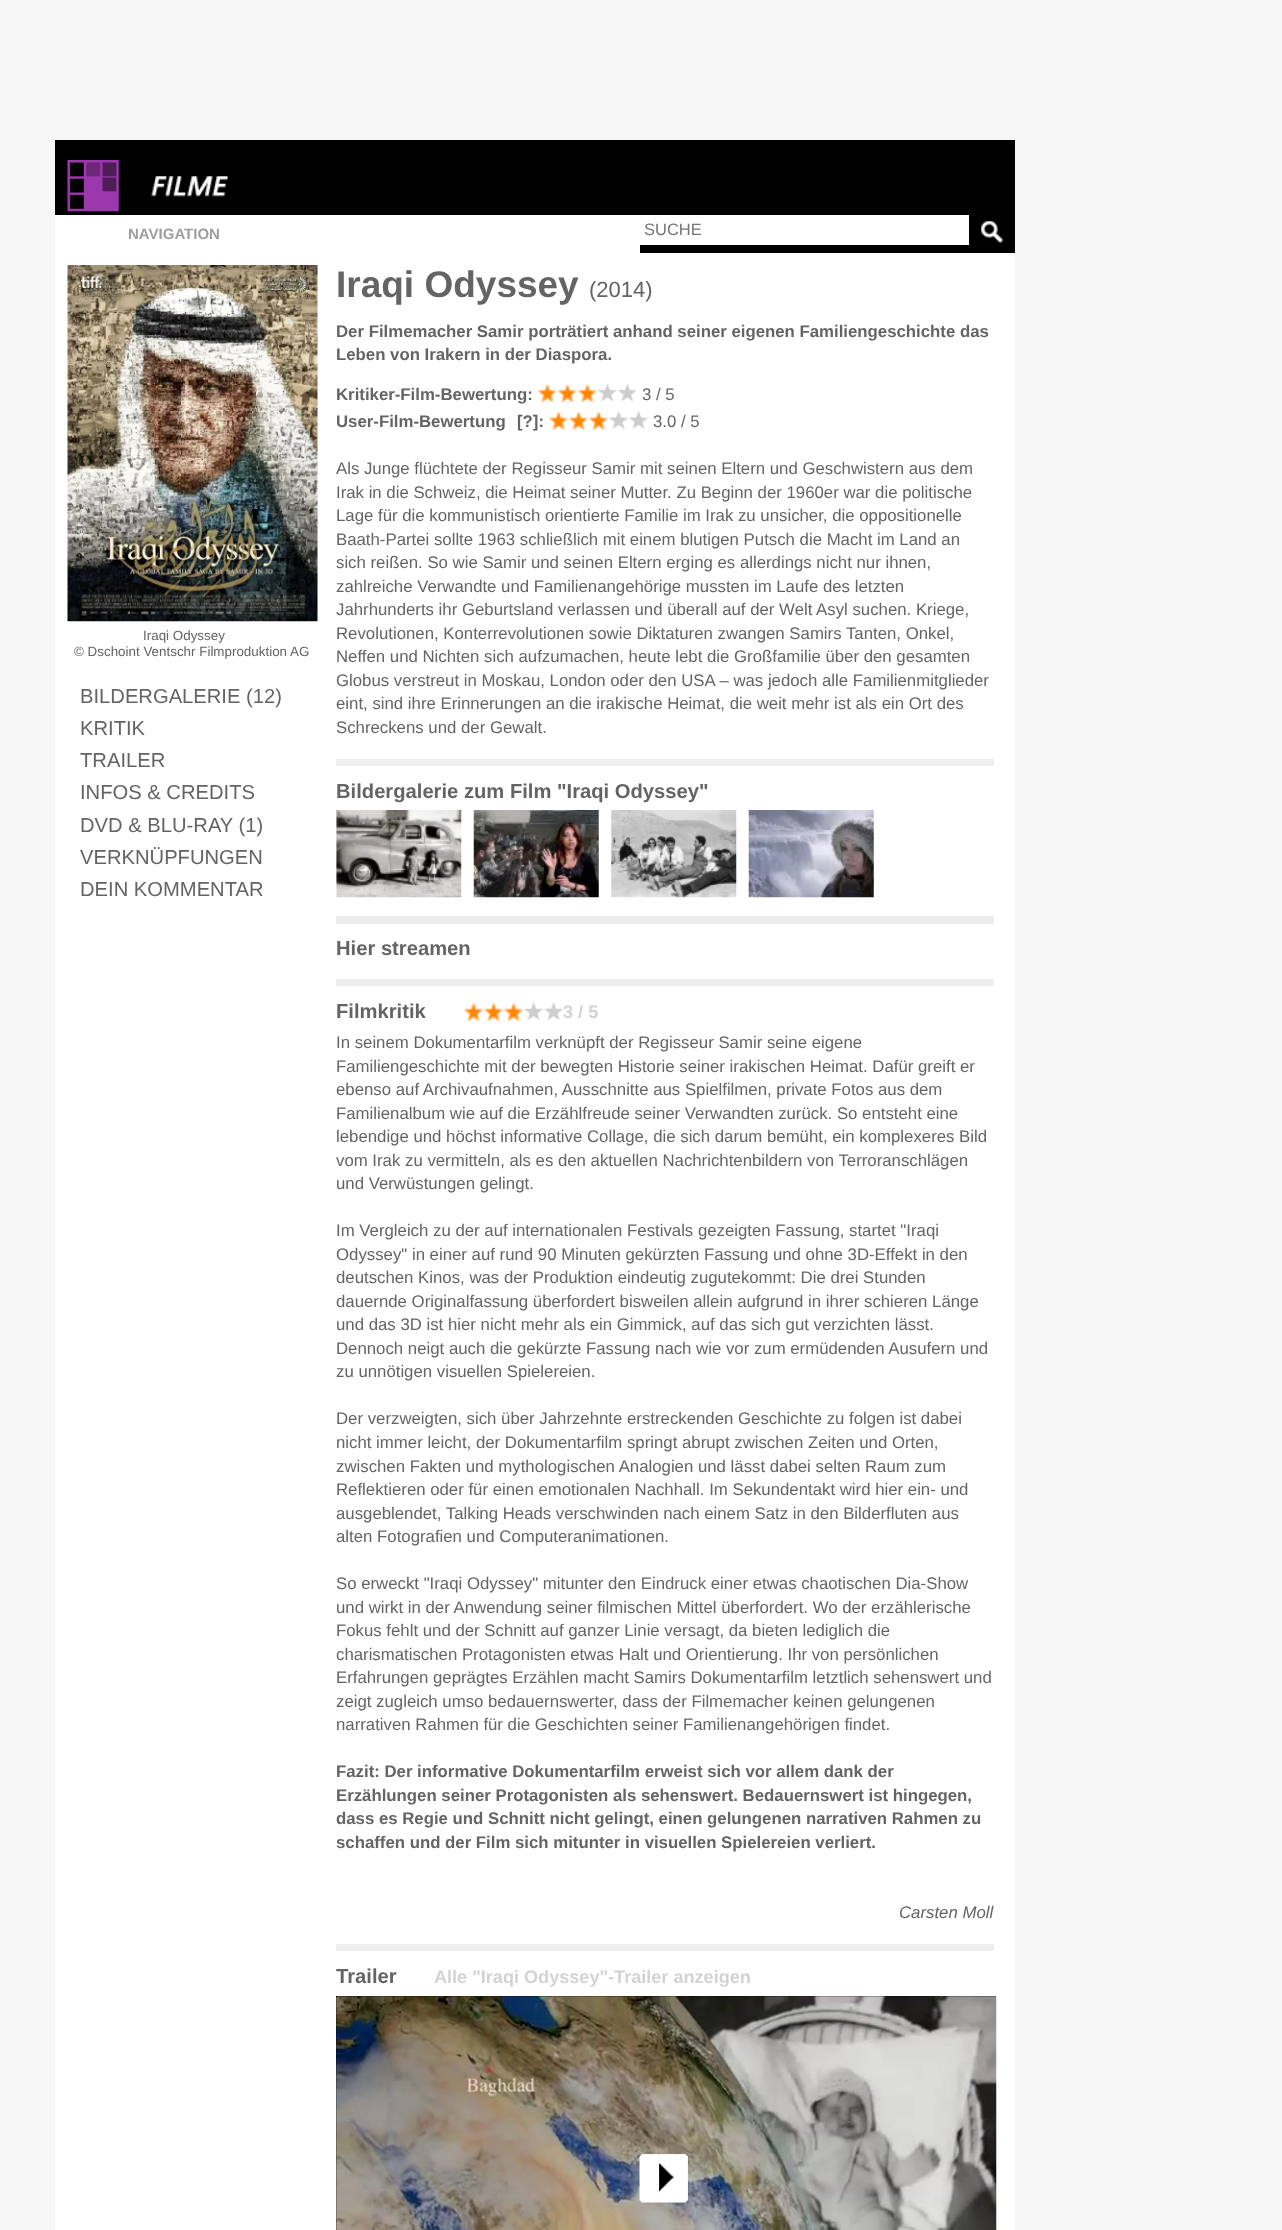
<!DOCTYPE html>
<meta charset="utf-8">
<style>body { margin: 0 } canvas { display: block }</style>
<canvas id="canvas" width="1282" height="2230"></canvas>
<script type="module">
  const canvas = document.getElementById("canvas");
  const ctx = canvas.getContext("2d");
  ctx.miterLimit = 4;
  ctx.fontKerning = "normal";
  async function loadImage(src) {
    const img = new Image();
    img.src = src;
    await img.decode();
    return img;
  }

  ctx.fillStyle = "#f7f7f7";
  ctx.fillRect(0, 0, 1282, 2230);
  ctx.fillStyle = "#ffffff";
  ctx.fillRect(55, 253, 960, 1977);
  ctx.fillStyle = "#000000";
  ctx.fillRect(55, 140, 960, 75);
  ctx.drawImage(await loadImage("img1.png"), 67, 160, 52, 52);
  ctx.drawImage(await loadImage("img2.png"), 151, 176, 78, 21);
  ctx.fillStyle = "#ffffff";
  ctx.fillRect(55, 215, 585, 38);
  ctx.font = "bold 15px Liberation Sans";
  ctx.fillStyle = "#9d9d9d";
  ctx.fillText("NAVIGATION", 128, 239);
  ctx.fillStyle = "#000000";
  ctx.fillRect(640, 215, 375, 38);
  ctx.fillStyle = "#ffffff";
  ctx.fillRect(640, 215, 329, 30);
  ctx.font = "16.5px Liberation Sans";
  ctx.fillStyle = "#757575";
  ctx.fillText("SUCHE", 644, 235);
  ctx.drawImage(await loadImage("img3.png"), 981, 221, 22, 22);
  ctx.drawImage(await loadImage("img4.png"), 67, 265, 251, 357);
  ctx.font = "13.4px Liberation Sans";
  ctx.fillStyle = "#646464";
  ctx.fillText("Iraqi Odyssey", 143, 640);
  ctx.fillText("© Dschoint Ventschr Filmproduktion AG", 74, 656);
  ctx.font = "20.2px Liberation Sans";
  ctx.fillText("BILDERGALERIE (12)", 80, 703);
  ctx.fillText("KRITIK", 80, 735);
  ctx.fillText("TRAILER", 80, 767);
  ctx.fillText("INFOS & CREDITS", 80, 799);
  ctx.fillText("DVD & BLU-RAY (1)", 80, 832);
  ctx.fillText("VERKNÜPFUNGEN", 80, 864);
  ctx.fillText("DEIN KOMMENTAR", 80, 896);
  ctx.font = "bold 37px Liberation Sans";
  ctx.fillText("Iraqi Odyssey", 336, 297);
  ctx.font = "22px Liberation Sans";
  ctx.fillText("(2014)", 589, 297);
  ctx.font = "bold 16.8px Liberation Sans";
  ctx.fillText("Der Filmemacher Samir porträtiert anhand seiner eigenen Familiengeschichte das", 336, 337);
  ctx.fillText("Leben von Irakern in der Diaspora.", 336, 360);
  ctx.fillText("Kritiker-Film-Bewertung:", 336, 400);
  ctx.drawImage(await loadImage("img5.png"), 537, 383, 21, 20);
  ctx.drawImage(await loadImage("img6.png"), 557, 383, 21, 20);
  ctx.drawImage(await loadImage("img6.png"), 577, 383, 21, 20);
  ctx.drawImage(await loadImage("img7.png"), 597, 383, 20, 19);
  ctx.drawImage(await loadImage("img8.png"), 617, 383, 20, 19);
  ctx.font = "16.8px Liberation Sans";
  ctx.fillText("3 / 5", 642, 400);
  ctx.font = "bold 16.8px Liberation Sans";
  ctx.fillText("User-Film-Bewertung", 336, 427);
  ctx.fillText("[?]:", 517, 427);
  ctx.drawImage(await loadImage("img9.png"), 548, 411, 21, 19);
  ctx.drawImage(await loadImage("img10.png"), 568, 411, 21, 19);
  ctx.drawImage(await loadImage("img11.png"), 588, 411, 21, 19);
  ctx.drawImage(await loadImage("img12.png"), 609, 411, 20, 18);
  ctx.drawImage(await loadImage("img12.png"), 629, 411, 20, 18);
  ctx.font = "16.8px Liberation Sans";
  ctx.fillText("3.0 / 5", 653, 427);
  ctx.fillText("Als Junge flüchtete der Regisseur Samir mit seinen Eltern und Geschwistern aus dem", 336, 474);
  ctx.fillText("Irak in die Schweiz, die Heimat seiner Mutter. Zu Beginn der 1960er war die politische", 336, 498);
  ctx.fillText("Lage für die kommunistisch orientierte Familie im Irak zu unsicher, die oppositionelle", 336, 521);
  ctx.fillText("Baath-Partei sollte 1963 schließlich mit einem blutigen Putsch die Macht im Land an", 336, 545);
  ctx.fillText("sich reißen. So wie Samir und seinen Eltern erging es allerdings nicht nur ihnen,", 336, 568);
  ctx.fillText("zahlreiche Verwandte und Familienangehörige mussten im Laufe des letzten", 336, 592);
  ctx.fillText("Jahrhunderts ihr Geburtsland verlassen und überall auf der Welt Asyl suchen. Kriege,", 336, 615);
  ctx.fillText("Revolutionen, Konterrevolutionen sowie Diktaturen zwangen Samirs Tanten, Onkel,", 336, 639);
  ctx.fillText("Neffen und Nichten sich aufzumachen, heute lebt die Großfamilie über den gesamten", 336, 662);
  ctx.fillText("Globus verstreut in Moskau, London oder den USA – was jedoch alle Familienmitglieder", 336, 686);
  ctx.fillText("eint, sind ihre Erinnerungen an die irakische Heimat, die weit mehr ist als ein Ort des", 336, 709);
  ctx.fillText("Schreckens und der Gewalt.", 336, 733);
  ctx.fillStyle = "#eeeeee";
  ctx.fillRect(336, 759, 658, 7);
  ctx.font = "bold 20.2px Liberation Sans";
  ctx.fillStyle = "#646464";
  ctx.fillText("Bildergalerie zum Film \"Iraqi Odyssey\"", 336, 798);
  ctx.drawImage(await loadImage("img13.png"), 336, 810, 126, 88);
  ctx.drawImage(await loadImage("img14.png"), 473, 810, 126, 88);
  ctx.drawImage(await loadImage("img15.png"), 611, 810, 126, 88);
  ctx.drawImage(await loadImage("img16.png"), 748, 810, 126, 88);
  ctx.fillStyle = "#eeeeee";
  ctx.fillRect(336, 916, 658, 8);
  ctx.fillStyle = "#646464";
  ctx.fillText("Hier streamen", 336, 955);
  ctx.fillStyle = "#eeeeee";
  ctx.fillRect(336, 979, 658, 7);
  ctx.fillStyle = "#646464";
  ctx.fillText("Filmkritik", 336, 1018);
  ctx.drawImage(await loadImage("img17.png"), 463, 1002, 21, 20);
  ctx.drawImage(await loadImage("img18.png"), 483, 1002, 21, 20);
  ctx.drawImage(await loadImage("img18.png"), 503, 1002, 21, 20);
  ctx.drawImage(await loadImage("img19.png"), 524, 1002, 19, 18);
  ctx.drawImage(await loadImage("img20.png"), 544, 1002, 19, 18);
  ctx.font = "bold 18.1px Liberation Sans";
  ctx.fillStyle = "#d3d3d3";
  ctx.fillText("3 / 5", 563, 1018);
  ctx.font = "16.8px Liberation Sans";
  ctx.fillStyle = "#646464";
  ctx.fillText("In seinem Dokumentarfilm verknüpft der Regisseur Samir seine eigene", 336, 1048);
  ctx.fillText("Familiengeschichte mit der bewegten Historie seiner irakischen Heimat. Dafür greift er", 336, 1072);
  ctx.fillText("ebenso auf Archivaufnahmen, Ausschnitte aus Spielfilmen, private Fotos aus dem", 336, 1095);
  ctx.fillText("Familienalbum wie auf die Erzählfreude seiner Verwandten zurück. So entsteht eine", 336, 1119);
  ctx.fillText("lebendige und höchst informative Collage, die sich darum bemüht, ein komplexeres Bild", 336, 1142);
  ctx.fillText("vom Irak zu vermitteln, als es den aktuellen Nachrichtenbildern von Terroranschlägen", 336, 1166);
  ctx.fillText("und Verwüstungen gelingt.", 336, 1189);
  ctx.fillText("Im Vergleich zu der auf internationalen Festivals gezeigten Fassung, startet \"Iraqi", 336, 1236);
  ctx.fillText("Odyssey\" in einer auf rund 90 Minuten gekürzten Fassung und ohne 3D-Effekt in den", 336, 1260);
  ctx.fillText("deutschen Kinos, was der Produktion eindeutig zugutekommt: Die drei Stunden", 336, 1283);
  ctx.fillText("dauernde Originalfassung überfordert bisweilen allein aufgrund in ihrer schieren Länge", 336, 1307);
  ctx.fillText("und das 3D ist hier nicht mehr als ein Gimmick, auf das sich gut verzichten lässt.", 336, 1330);
  ctx.fillText("Dennoch neigt auch die gekürzte Fassung nach wie vor zum ermüdenden Ausufern und", 336, 1354);
  ctx.fillText("zu unnötigen visuellen Spielereien.", 336, 1377);
  ctx.fillText("Der verzweigten, sich über Jahrzehnte erstreckenden Geschichte zu folgen ist dabei", 336, 1424);
  ctx.fillText("nicht immer leicht, der Dokumentarfilm springt abrupt zwischen Zeiten und Orten,", 336, 1448);
  ctx.fillText("zwischen Fakten und mythologischen Analogien und lässt dabei selten Raum zum", 336, 1472);
  ctx.fillText("Reflektieren oder für einen emotionalen Nachhall. Im Sekundentakt wird hier ein- und", 336, 1495);
  ctx.fillText("ausgeblendet, Talking Heads verschwinden nach einem Satz in den Bilderfluten aus", 336, 1519);
  ctx.fillText("alten Fotografien und Computeranimationen.", 336, 1542);
  ctx.fillText("So erweckt \"Iraqi Odyssey\" mitunter den Eindruck einer etwas chaotischen Dia-Show", 336, 1589);
  ctx.fillText("und wirkt in der Anwendung seiner filmischen Mittel überfordert. Wo der erzählerische", 336, 1613);
  ctx.fillText("Fokus fehlt und der Schnitt auf ganzer Linie versagt, da bieten lediglich die", 336, 1636);
  ctx.fillText("charismatischen Protagonisten etwas Halt und Orientierung. Ihr von persönlichen", 336, 1660);
  ctx.fillText("Erfahrungen geprägtes Erzählen macht Samirs Dokumentarfilm letztlich sehenswert und", 336, 1683);
  ctx.fillText("zeigt zugleich umso bedauernswerter, dass der Filmemacher keinen gelungenen", 336, 1707);
  ctx.fillText("narrativen Rahmen für die Geschichten seiner Familienangehörigen findet.", 336, 1730);
  ctx.font = "bold 16.8px Liberation Sans";
  ctx.fillText("Fazit: Der informative Dokumentarfilm erweist sich vor allem dank der", 336, 1777);
  ctx.fillText("Erzählungen seiner Protagonisten als sehenswert. Bedauernswert ist hingegen,", 336, 1801);
  ctx.fillText("dass es Regie und Schnitt nicht gelingt, einen gelungenen narrativen Rahmen zu", 336, 1824);
  ctx.fillText("schaffen und der Film sich mitunter in visuellen Spielereien verliert.", 336, 1848);
  ctx.font = "italic 16.8px Liberation Sans";
  ctx.fillText("Carsten Moll", 899, 1918);
  ctx.fillStyle = "#eeeeee";
  ctx.fillRect(336, 1944, 658, 7);
  ctx.font = "bold 20.2px Liberation Sans";
  ctx.fillStyle = "#646464";
  ctx.fillText("Trailer", 336, 1983);
  ctx.font = "bold 18.1px Liberation Sans";
  ctx.fillStyle = "#d3d3d3";
  ctx.fillText("Alle \"Iraqi Odyssey\"-Trailer anzeigen", 434, 1983);
  ctx.fillStyle = "#000000";
  ctx.fillRect(336, 1996, 660, 234);
  ctx.drawImage(await loadImage("img21.png"), 336, 1996, 661, 234);
</script>
